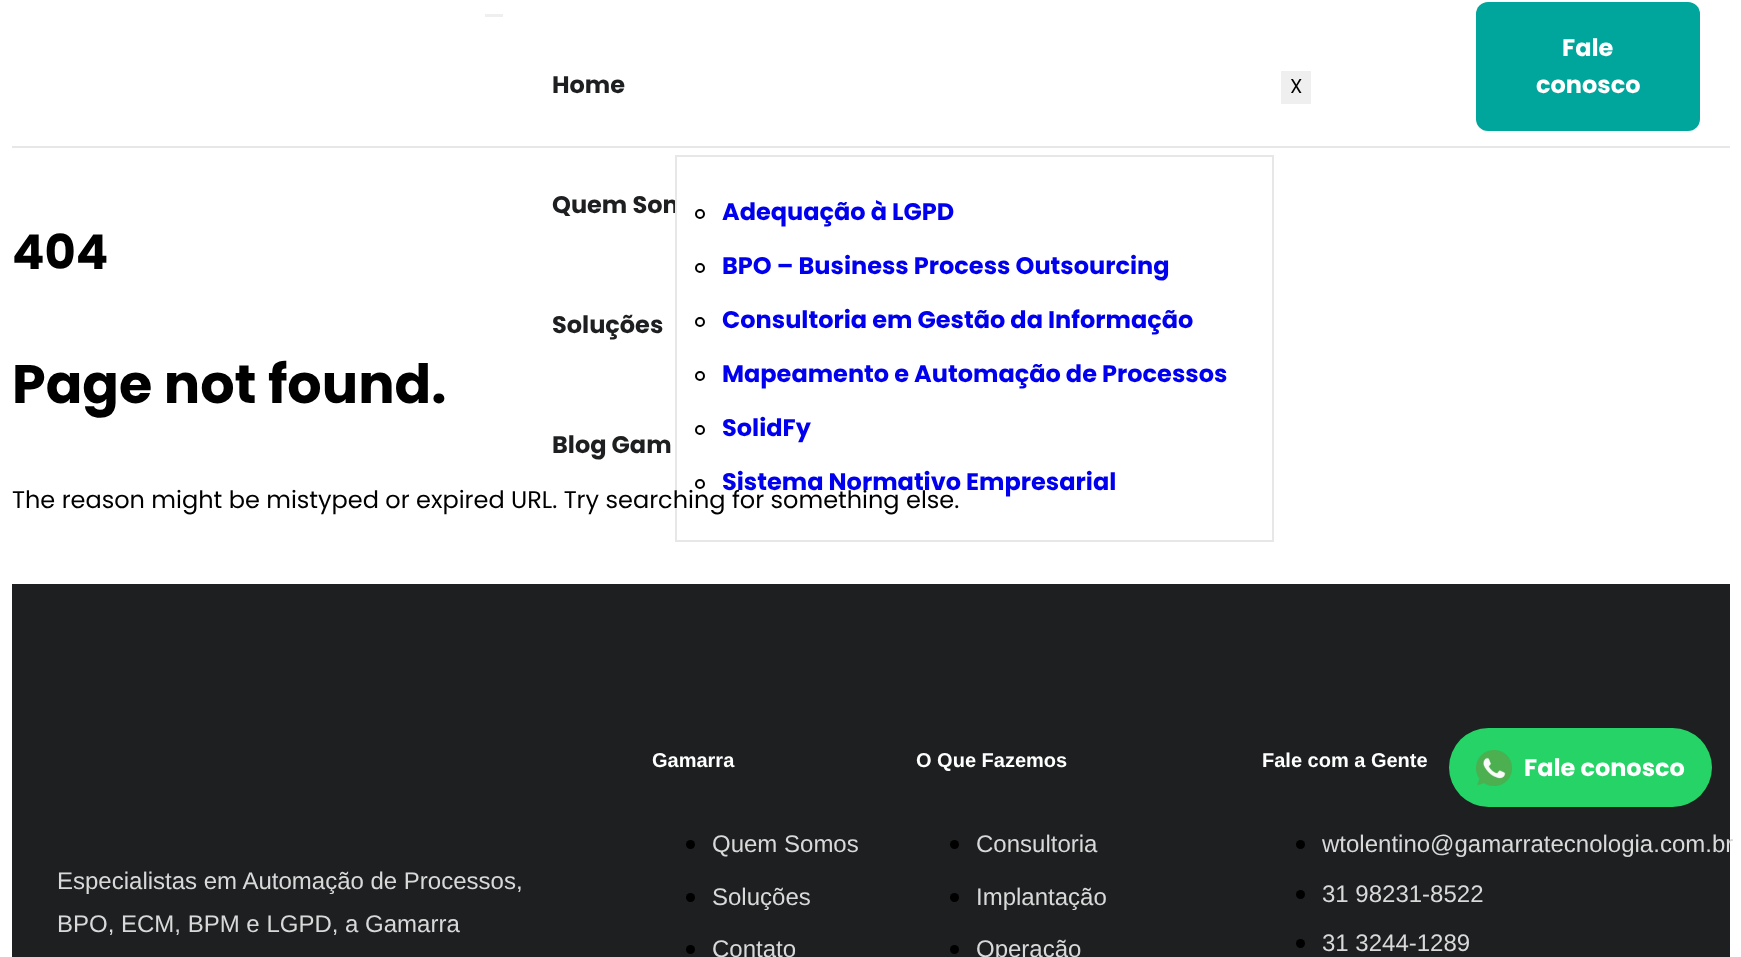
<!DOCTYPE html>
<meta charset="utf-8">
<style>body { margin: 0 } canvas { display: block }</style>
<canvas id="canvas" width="1741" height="957"></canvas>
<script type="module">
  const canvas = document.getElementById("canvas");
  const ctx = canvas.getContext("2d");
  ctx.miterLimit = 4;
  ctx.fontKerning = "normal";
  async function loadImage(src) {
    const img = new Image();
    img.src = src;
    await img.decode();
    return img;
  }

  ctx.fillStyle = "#ffffff";
  ctx.fillRect(0, 0, 1741, 957);
  ctx.font = "bold 48px Poppins";
  ctx.fillStyle = "#000000";
  ctx.fillText("404", 12, 269);
  ctx.font = "bold 54px Poppins";
  ctx.fillText("Page not found.", 12, 403);
  ctx.font = "bold 24px Poppins";
  ctx.fillStyle = "#1d1f20";
  ctx.fillText("Quem Som", 552, 213);
  ctx.fillStyle = "#ffffff";
  ctx.fillRect(677, 199, 10, 14);
  ctx.strokeStyle = "#e7e7e7";
  ctx.lineWidth = 2;
  ctx.strokeRect(676, 156, 597, 385);
  ctx.font = "24px Poppins";
  ctx.fillStyle = "#000000";
  ctx.fillText("The reason might be mistyped or expired URL. Try searching for something else.", 12, 508);
  ctx.fillStyle = "#e7e7e7";
  ctx.fillRect(12, 146, 1718, 2);
  ctx.fillStyle = "#00a69c";
  ctx.beginPath();
  ctx.roundRect(1476, 2, 224, 129, 12);
  ctx.fill();
  ctx.font = "bold 24px Poppins";
  ctx.fillStyle = "#ffffff";
  ctx.fillText("Fale", 1562, 56);
  ctx.fillText("conosco", 1536, 93);
  ctx.fillStyle = "#efefef";
  ctx.fillRect(485, 14, 18, 3);
  ctx.fillStyle = "#1d1f20";
  ctx.fillText("Home", 552, 93);
  ctx.fillText("Soluções", 552, 333);
  ctx.beginPath();
  ctx.arc(700, 214, 4, 0, Math.PI * 2);
  ctx.strokeStyle = "#000000";
  ctx.stroke();
  ctx.fillStyle = "#0000ee";
  ctx.fillText("Adequação à LGPD", 722, 220);
  ctx.beginPath();
  ctx.arc(700, 268, 4, 0, Math.PI * 2);
  ctx.stroke();
  ctx.fillText("BPO – Business Process Outsourcing", 722, 274);
  ctx.beginPath();
  ctx.arc(700, 322, 4, 0, Math.PI * 2);
  ctx.stroke();
  ctx.fillText("Consultoria em Gestão da Informação", 722, 328);
  ctx.beginPath();
  ctx.arc(700, 376, 4, 0, Math.PI * 2);
  ctx.stroke();
  ctx.fillText("Mapeamento e Automação de Processos", 722, 382);
  ctx.beginPath();
  ctx.arc(700, 430, 4, 0, Math.PI * 2);
  ctx.stroke();
  ctx.fillText("SolidFy", 722, 436);
  ctx.beginPath();
  ctx.arc(700, 484, 4, 0, Math.PI * 2);
  ctx.stroke();
  ctx.fillText("Sistema Normativo Empresarial", 722, 490);
  ctx.fillStyle = "#1d1f20";
  ctx.fillText("Blog Gam", 552, 453);
  ctx.fillStyle = "#efefef";
  ctx.fillRect(1281, 71, 30, 33);
  ctx.font = "20px Poppins";
  ctx.fillStyle = "#000000";
  ctx.fillText("X", 1290, 93);
  ctx.fillStyle = "#1d1f20";
  ctx.fillRect(12, 584, 1718, 373);
  ctx.font = "24px Liberation Sans";
  ctx.fillStyle = "#d9d9d9";
  ctx.fillText("Especialistas em Automação de Processos,", 57, 889);
  ctx.fillText("BPO, ECM, BPM e LGPD, a Gamarra", 57, 932);
  ctx.font = "bold 20px Liberation Sans";
  ctx.fillStyle = "#ffffff";
  ctx.fillText("Gamarra", 652, 767);
  ctx.fillStyle = "#000000";
  ctx.beginPath();
  ctx.arc(690.5, 844.5, 4.5, 0, Math.PI * 2);
  ctx.fill();
  ctx.font = "24px Liberation Sans";
  ctx.fillStyle = "#d9d9d9";
  ctx.fillText("Quem Somos", 712, 852);
  ctx.fillStyle = "#000000";
  ctx.beginPath();
  ctx.arc(690.5, 897.5, 4.5, 0, Math.PI * 2);
  ctx.fill();
  ctx.fillStyle = "#d9d9d9";
  ctx.fillText("Soluções", 712, 905);
  ctx.fillStyle = "#000000";
  ctx.beginPath();
  ctx.arc(690.5, 949.5, 4.5, 0, Math.PI * 2);
  ctx.fill();
  ctx.fillStyle = "#d9d9d9";
  ctx.fillText("Contato", 712, 957);
  ctx.font = "bold 20px Liberation Sans";
  ctx.fillStyle = "#ffffff";
  ctx.fillText("O Que Fazemos", 916, 767);
  ctx.fillStyle = "#000000";
  ctx.beginPath();
  ctx.arc(954.5, 844.5, 4.5, 0, Math.PI * 2);
  ctx.fill();
  ctx.font = "24px Liberation Sans";
  ctx.fillStyle = "#d9d9d9";
  ctx.fillText("Consultoria", 976, 852);
  ctx.fillStyle = "#000000";
  ctx.beginPath();
  ctx.arc(954.5, 897.5, 4.5, 0, Math.PI * 2);
  ctx.fill();
  ctx.fillStyle = "#d9d9d9";
  ctx.fillText("Implantação", 976, 905);
  ctx.fillStyle = "#000000";
  ctx.beginPath();
  ctx.arc(954.5, 949.5, 4.5, 0, Math.PI * 2);
  ctx.fill();
  ctx.fillStyle = "#d9d9d9";
  ctx.fillText("Operação", 976, 957);
  ctx.font = "bold 20px Liberation Sans";
  ctx.fillStyle = "#ffffff";
  ctx.fillText("Fale com a Gente", 1262, 767);
  ctx.fillStyle = "#25d366";
  ctx.beginPath();
  ctx.roundRect(1449, 728, 263, 79, 39.5);
  ctx.fill();
  ctx.drawImage(await loadImage("img1.png"), 1476, 750, 36, 36);
  ctx.font = "bold 24px Poppins";
  ctx.fillStyle = "#ffffff";
  ctx.fillText("Fale conosco", 1524, 776);
  ctx.fillStyle = "#000000";
  ctx.beginPath();
  ctx.arc(1300.5, 844.5, 4.5, 0, Math.PI * 2);
  ctx.fill();
  ctx.font = "24px Liberation Sans";
  ctx.fillStyle = "#d9d9d9";
  ctx.fillText("wtolentino@gamarratecnologia.com.br", 1322, 852);
  ctx.fillStyle = "#000000";
  ctx.beginPath();
  ctx.arc(1300.5, 894.5, 4.5, 0, Math.PI * 2);
  ctx.fill();
  ctx.fillStyle = "#d9d9d9";
  ctx.fillText("31 98231-8522", 1322, 902);
  ctx.fillStyle = "#000000";
  ctx.beginPath();
  ctx.arc(1300.5, 943.5, 4.5, 0, Math.PI * 2);
  ctx.fill();
  ctx.fillStyle = "#d9d9d9";
  ctx.fillText("31 3244-1289", 1322, 951);
</script>
